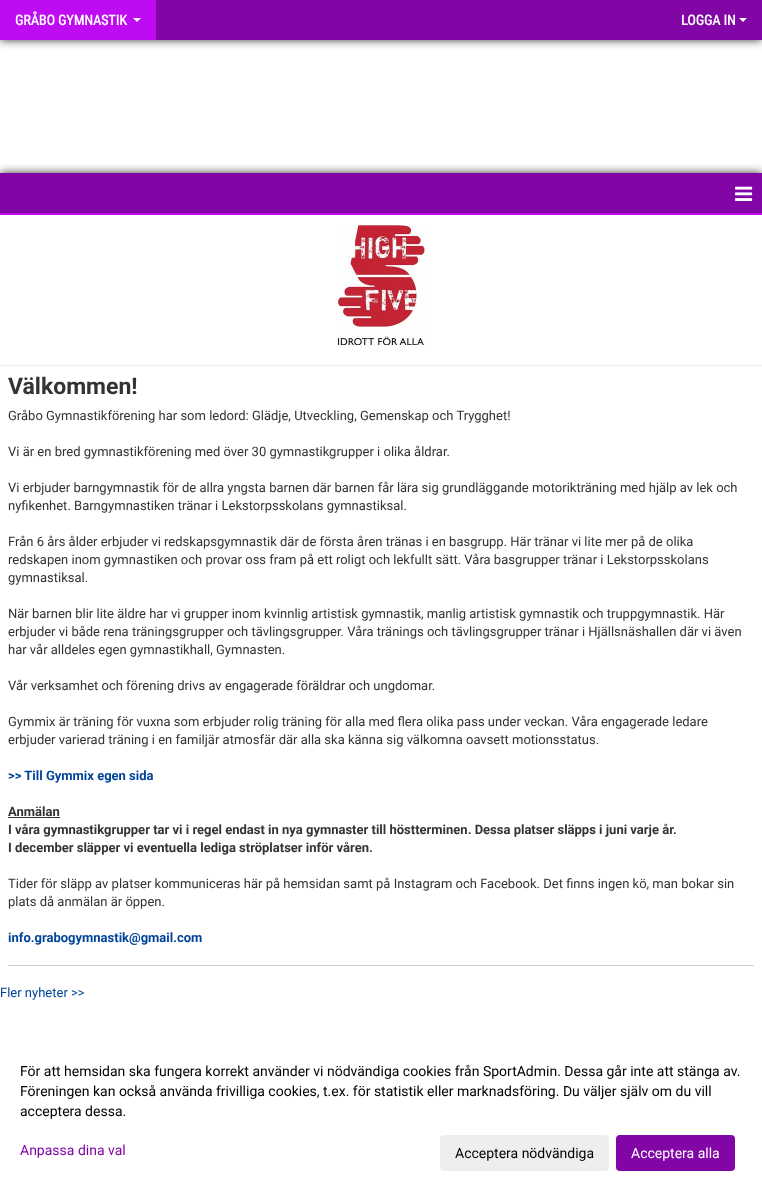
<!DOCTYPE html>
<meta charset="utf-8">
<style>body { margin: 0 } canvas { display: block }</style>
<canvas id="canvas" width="762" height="1191"></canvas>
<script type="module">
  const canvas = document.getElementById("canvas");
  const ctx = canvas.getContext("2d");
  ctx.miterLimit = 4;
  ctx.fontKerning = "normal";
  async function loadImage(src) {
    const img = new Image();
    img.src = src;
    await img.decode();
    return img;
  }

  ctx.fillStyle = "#ffffff";
  ctx.fillRect(0, 0, 762, 1191);
  ctx.fillStyle = "#333333";
  ctx.filter = "blur(5px)";
  ctx.beginPath();
  ctx.rect(0, 0, 762, 40);
  ctx.fill();
  ctx.filter = "none";
  ctx.fillStyle = "#8206a5";
  ctx.fillRect(156, 0, 606, 40);
  ctx.fillStyle = "#be0bf1";
  ctx.fillRect(0, 0, 156, 40);
  ctx.font = "bold 14px Roboto Condensed";
  ctx.fillStyle = "#ffffff";
  ctx.fillText("GRÅBO GYMNASTIK", 15, 25);
  ctx.beginPath();
  ctx.moveTo(133, 18);
  ctx.lineTo(141, 18);
  ctx.lineTo(137, 22);
  ctx.closePath();
  ctx.fill();
  ctx.fillText("LOGGA IN", 681, 25);
  ctx.beginPath();
  ctx.moveTo(739, 18);
  ctx.lineTo(747, 18);
  ctx.lineTo(743, 22);
  ctx.closePath();
  ctx.fill();
  ctx.save();
  ctx.beginPath();
  ctx.rect(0, 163, 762, 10);
  ctx.clip();
  ctx.fillStyle = "#333333";
  ctx.filter = "blur(5px)";
  ctx.beginPath();
  ctx.rect(0, 173, 762, 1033);
  ctx.fill();
  ctx.filter = "none";
  ctx.restore();
  ctx.fillStyle = "#8206a5";
  ctx.fillRect(0, 173, 762, 40);
  ctx.fillStyle = "#be0bf1";
  ctx.fillRect(0, 213, 762, 2);
  ctx.drawImage(await loadImage("img1.png"), 735, 186, 18, 15);
  ctx.drawImage(await loadImage("img2.png"), 336, 225, 93, 120);
  ctx.fillStyle = "#eeeeee";
  ctx.fillRect(0, 365, 762, 1);
  ctx.font = "bold 23px Roboto";
  ctx.fillStyle = "#333333";
  ctx.fillText("Välkommen!", 8, 394);
  ctx.font = "13px Roboto";
  ctx.fillText("Gråbo Gymnastikförening har som ledord: Glädje, Utveckling, Gemenskap och Trygghet!", 8, 420);
  ctx.fillText("Vi är en bred gymnastikförening med över 30 gymnastikgrupper i olika åldrar.", 8, 456);
  ctx.fillText("Vi erbjuder barngymnastik för de allra yngsta barnen där barnen får lära sig grundläggande motorikträning med hjälp av lek och", 8, 492);
  ctx.fillText("nyfikenhet. Barngymnastiken tränar i Lekstorpsskolans gymnastiksal.", 8, 510);
  ctx.fillText("Från 6 års ålder erbjuder vi redskapsgymnastik där de första åren tränas i en basgrupp. Här tränar vi lite mer på de olika", 8, 546);
  ctx.fillText("redskapen inom gymnastiken och provar oss fram på ett roligt och lekfullt sätt. Våra basgrupper tränar i Lekstorpsskolans", 8, 564);
  ctx.fillText("gymnastiksal.", 8, 582);
  ctx.fillText("När barnen blir lite äldre har vi grupper inom kvinnlig artistisk gymnastik, manlig artistisk gymnastik och truppgymnastik. Här", 8, 618);
  ctx.fillText("erbjuder vi både rena träningsgrupper och tävlingsgrupper. Våra tränings och tävlingsgrupper tränar i Hjällsnäshallen där vi även", 8, 636);
  ctx.fillText("har vår alldeles egen gymnastikhall, Gymnasten.", 8, 654);
  ctx.fillText("Vår verksamhet och förening drivs av engagerade föräldrar och ungdomar.", 8, 690);
  ctx.fillText("Gymmix är träning för vuxna som erbjuder rolig träning för alla med flera olika pass under veckan. Våra engagerade ledare", 8, 726);
  ctx.fillText("erbjuder varierad träning i en familjär atmosfär där alla ska känna sig välkomna oavsett motionsstatus.", 8, 744);
  ctx.font = "bold 13px Roboto";
  ctx.fillStyle = "#004499";
  ctx.fillText(">> Till Gymmix egen sida", 8, 780);
  ctx.fillStyle = "#333333";
  ctx.fillText("Anmälan", 8, 816);
  ctx.fillRect(8, 817, 52, 1);
  ctx.fillText("I våra gymnastikgrupper tar vi i regel endast in nya gymnaster till höstterminen. Dessa platser släpps i juni varje år.", 8, 834);
  ctx.fillText("I december släpper vi eventuella lediga ströplatser inför våren.", 8, 852);
  ctx.font = "13px Roboto";
  ctx.fillText("Tider för släpp av platser kommuniceras här på hemsidan samt på Instagram och Facebook. Det finns ingen kö, man bokar sin", 8, 888);
  ctx.fillText("plats då anmälan är öppen.", 8, 906);
  ctx.font = "bold 13px Roboto";
  ctx.fillStyle = "#004499";
  ctx.fillText("info.grabogymnastik@gmail.com", 8, 942);
  ctx.fillStyle = "#cccccc";
  ctx.fillRect(8, 965, 746, 1);
  ctx.font = "13px Roboto";
  ctx.fillStyle = "#004499";
  ctx.fillText("Fler nyheter >>", 0, 997);
  ctx.font = "14px Roboto";
  ctx.fillStyle = "#000000";
  ctx.fillText("För att hemsidan ska fungera korrekt använder vi nödvändiga cookies från SportAdmin. Dessa går inte att stänga av.", 20, 1076);
  ctx.fillText("Föreningen kan också använda frivilliga cookies, t.ex. för statistik eller marknadsföring. Du väljer själv om du vill", 20, 1096);
  ctx.fillText("acceptera dessa.", 20, 1116);
  ctx.fillStyle = "#8206a5";
  ctx.fillText("Anpassa dina val", 20, 1155);
  ctx.fillStyle = "#eeeeee";
  ctx.beginPath();
  ctx.roundRect(440, 1135, 169, 36, 4);
  ctx.fill();
  ctx.fillStyle = "#000000";
  ctx.fillText("Acceptera nödvändiga", 455, 1158);
  ctx.fillStyle = "#8206a5";
  ctx.beginPath();
  ctx.roundRect(616, 1135, 119, 36, 4);
  ctx.fill();
  ctx.fillStyle = "#ffffff";
  ctx.fillText("Acceptera alla", 631, 1158);
</script>
